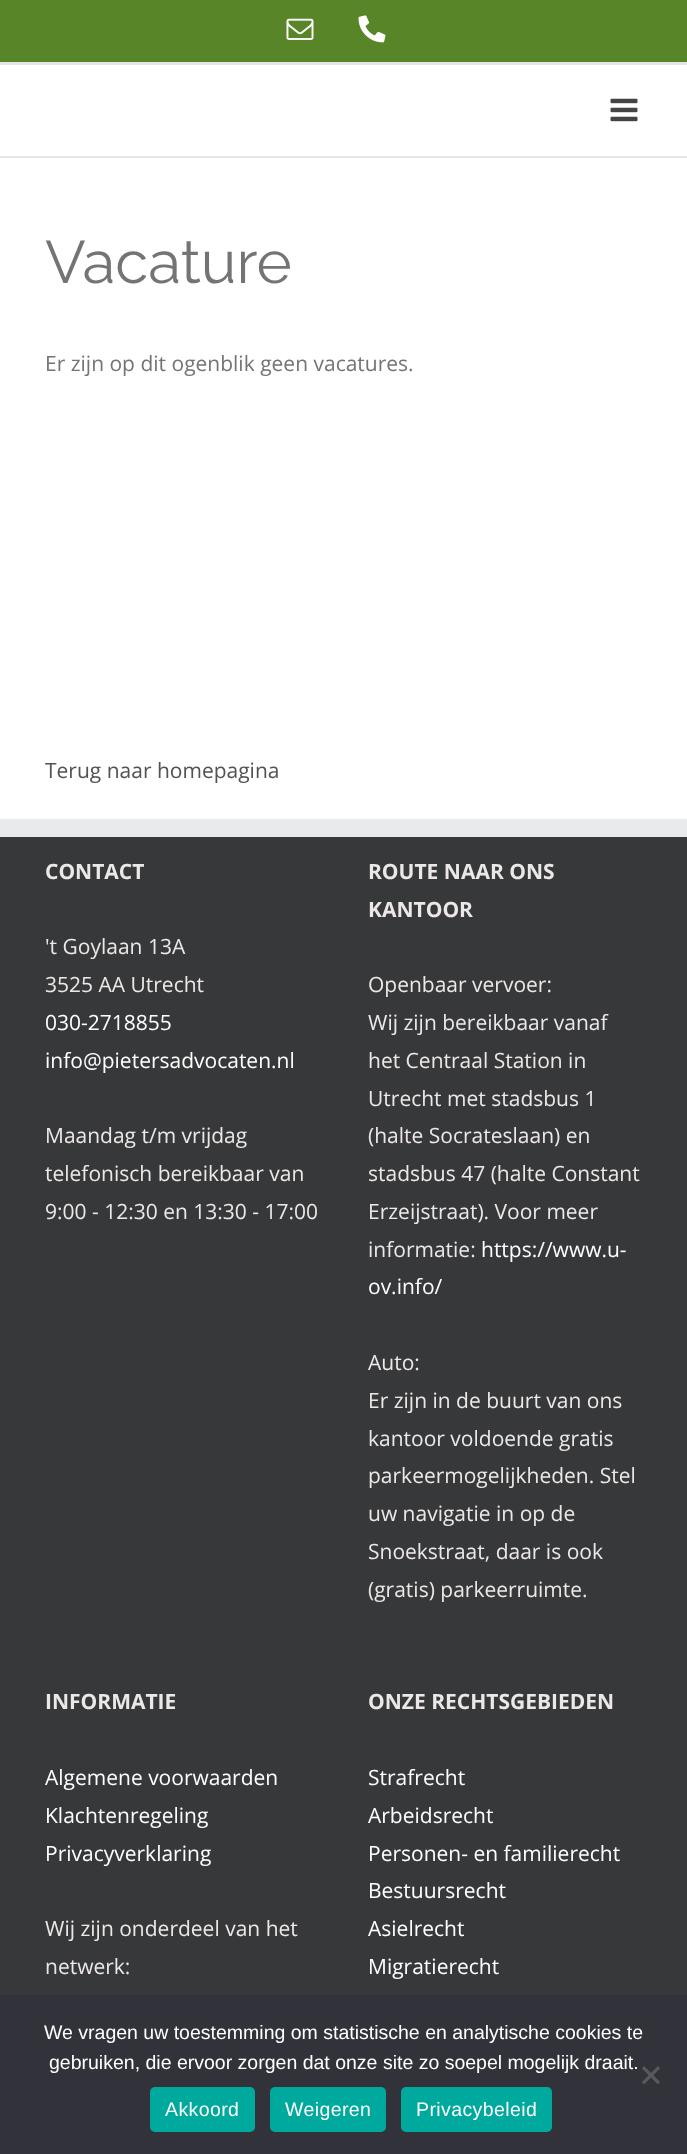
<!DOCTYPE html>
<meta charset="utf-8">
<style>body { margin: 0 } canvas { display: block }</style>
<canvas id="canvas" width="687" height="2154"></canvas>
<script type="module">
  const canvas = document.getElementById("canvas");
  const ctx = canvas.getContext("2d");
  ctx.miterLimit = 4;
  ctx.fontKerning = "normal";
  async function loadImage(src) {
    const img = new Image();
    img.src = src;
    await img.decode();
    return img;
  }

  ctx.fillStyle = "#ffffff";
  ctx.fillRect(0, 0, 687, 2154);
  ctx.fillStyle = "#588527";
  ctx.fillRect(0, 0, 687, 62);
  ctx.fillStyle = "#e5e5e5";
  ctx.fillRect(0, 62, 687, 3);
  ctx.drawImage(await loadImage("img1.png"), 286, 18, 28, 22);
  ctx.drawImage(await loadImage("img2.png"), 358, 15, 28, 28);
  ctx.fillRect(0, 156, 687, 2);
  ctx.drawImage(await loadImage("img3.png"), 610, 98, 28, 24);
  ctx.font = "100 60px Raleway";
  ctx.fillStyle = "#747474";
  ctx.fillText("Vacature", 45, 283);
  ctx.font = "21px Open Sans";
  ctx.fillText("Er zijn op dit ogenblik geen vacatures.", 45, 371);
  ctx.fillStyle = "#525252";
  ctx.fillText("Terug naar homepagina", 45, 778);
  ctx.fillStyle = "#363839";
  ctx.fillRect(0, 837, 687, 1158);
  ctx.fillStyle = "#e9eaee";
  ctx.fillRect(0, 819, 687, 18);
  ctx.font = "bold 21px Open Sans";
  ctx.fillStyle = "#ede8e8";
  ctx.fillText("CONTACT", 45, 879);
  ctx.font = "21px Open Sans";
  ctx.fillText("'t Goylaan 13A", 45, 954);
  ctx.fillText("3525 AA Utrecht", 45, 992);
  ctx.fillStyle = "#ffffff";
  ctx.fillText("030-2718855", 45, 1030);
  ctx.fillText("info@pietersadvocaten.nl", 45, 1068);
  ctx.fillStyle = "#ede8e8";
  ctx.fillText("Maandag t/m vrijdag", 45, 1143);
  ctx.fillText("telefonisch bereikbaar van", 45, 1181);
  ctx.fillText("9:00 - 12:30 en 13:30 - 17:00", 45, 1219);
  ctx.font = "bold 21px Open Sans";
  ctx.fillText("ROUTE NAAR ONS", 368, 879);
  ctx.fillText("KANTOOR", 368, 917);
  ctx.font = "21px Open Sans";
  ctx.fillText("Openbaar vervoer:", 368, 992);
  ctx.fillText("Wij zijn bereikbaar vanaf", 368, 1030);
  ctx.fillText("het Centraal Station in", 368, 1068);
  ctx.fillText("Utrecht met stadsbus 1", 368, 1106);
  ctx.fillText("(halte Socrateslaan) en", 368, 1143);
  ctx.fillText("stadsbus 47 (halte Constant", 368, 1181);
  ctx.fillText("Erzeijstraat). Voor meer", 368, 1219);
  ctx.fillText("informatie:", 368, 1257);
  ctx.fillStyle = "#ffffff";
  ctx.fillText("https://www.u-", 481, 1257);
  ctx.fillText("ov.info/", 368, 1294);
  ctx.fillStyle = "#ede8e8";
  ctx.fillText("Auto:", 368, 1370);
  ctx.fillText("Er zijn in de buurt van ons", 368, 1408);
  ctx.fillText("kantoor voldoende gratis", 368, 1446);
  ctx.fillText("parkeermogelijkheden. Stel", 368, 1483);
  ctx.fillText("uw navigatie in op de", 368, 1521);
  ctx.fillText("Snoekstraat, daar is ook", 368, 1559);
  ctx.fillText("(gratis) parkeerruimte.", 368, 1597);
  ctx.font = "bold 21px Open Sans";
  ctx.fillText("INFORMATIE", 45, 1709);
  ctx.font = "21px Open Sans";
  ctx.fillStyle = "#ffffff";
  ctx.fillText("Algemene voorwaarden", 45, 1785);
  ctx.fillText("Klachtenregeling", 45, 1823);
  ctx.fillText("Privacyverklaring", 45, 1861);
  ctx.fillStyle = "#ede8e8";
  ctx.fillText("Wij zijn onderdeel van het", 45, 1936);
  ctx.fillText("netwerk:", 45, 1974);
  ctx.font = "bold 21px Open Sans";
  ctx.fillText("ONZE RECHTSGEBIEDEN", 368, 1709);
  ctx.font = "21px Open Sans";
  ctx.fillStyle = "#ffffff";
  ctx.fillText("Strafrecht", 368, 1785);
  ctx.fillText("Arbeidsrecht", 368, 1823);
  ctx.fillText("Personen- en familierecht", 368, 1861);
  ctx.fillText("Bestuursrecht", 368, 1898);
  ctx.fillText("Asielrecht", 368, 1936);
  ctx.fillText("Migratierecht", 368, 1974);
  ctx.fillStyle = "#32323a";
  ctx.fillRect(0, 1995, 687, 159);
  ctx.font = "19.5px Liberation Sans";
  ctx.fillStyle = "#ffffff";
  ctx.fillText("We vragen uw toestemming om statistische en analytische cookies te", 44, 2039);
  ctx.fillText("gebruiken, die ervoor zorgen dat onze site zo soepel mogelijk draait.", 49, 2069);
  ctx.fillStyle = "#59595d";
  ctx.beginPath();
  ctx.moveTo(658, 2066);
  ctx.lineTo(660, 2068.5);
  ctx.lineTo(644, 2084.5);
  ctx.lineTo(642, 2082);
  ctx.closePath();
  ctx.fill();
  ctx.beginPath();
  ctx.moveTo(642, 2068.5);
  ctx.lineTo(644, 2066);
  ctx.lineTo(660, 2082);
  ctx.lineTo(658, 2084.5);
  ctx.closePath();
  ctx.fill();
  ctx.fillStyle = "#00a99d";
  ctx.beginPath();
  ctx.roundRect(150, 2087, 105, 45, 5);
  ctx.fill();
  ctx.letterSpacing = "0.4px";
  ctx.fillStyle = "#ffffff";
  ctx.fillText("Akkoord", 165, 2116);
  ctx.fillStyle = "#00a99d";
  ctx.beginPath();
  ctx.roundRect(270, 2087, 116, 45, 5);
  ctx.fill();
  ctx.fillStyle = "#ffffff";
  ctx.fillText("Weigeren", 285, 2116);
  ctx.fillStyle = "#00a99d";
  ctx.beginPath();
  ctx.roundRect(401, 2087, 151, 45, 5);
  ctx.fill();
  ctx.fillStyle = "#ffffff";
  ctx.fillText("Privacybeleid", 416, 2116);
</script>
